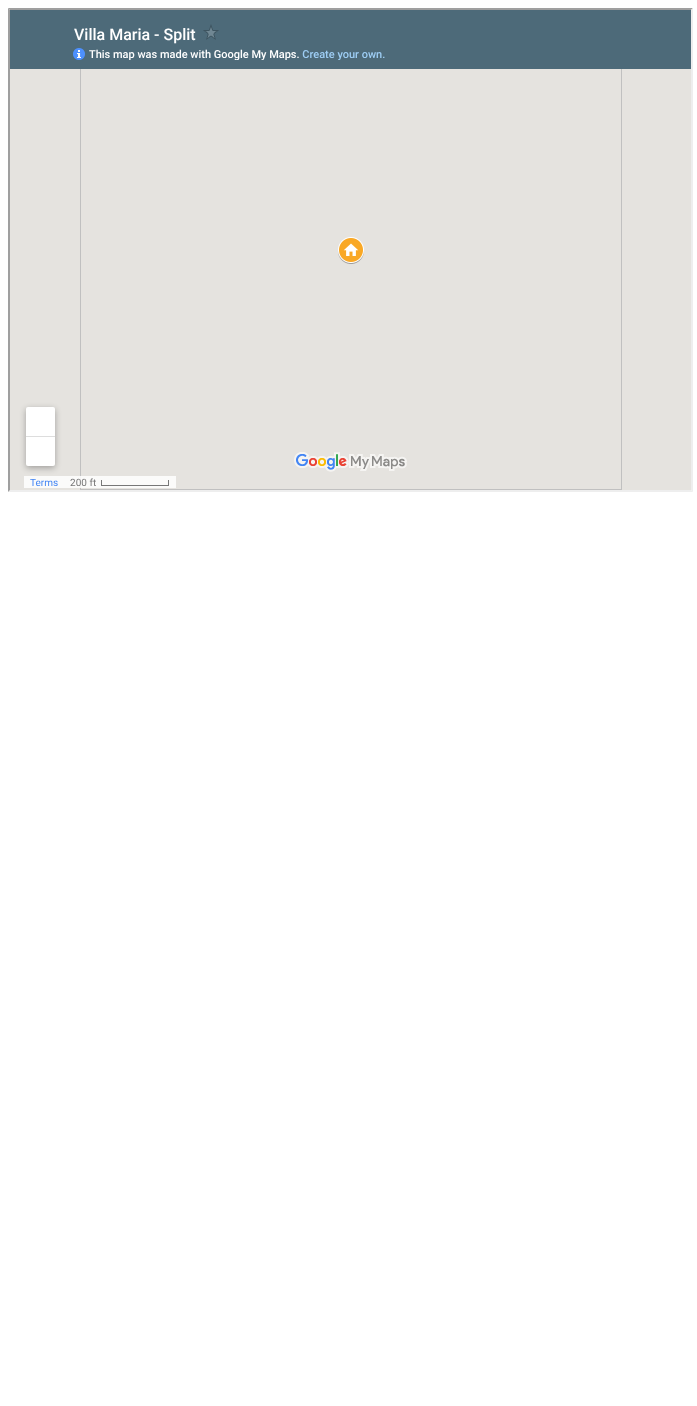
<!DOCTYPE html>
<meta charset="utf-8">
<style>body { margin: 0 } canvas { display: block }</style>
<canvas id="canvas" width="697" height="1406"></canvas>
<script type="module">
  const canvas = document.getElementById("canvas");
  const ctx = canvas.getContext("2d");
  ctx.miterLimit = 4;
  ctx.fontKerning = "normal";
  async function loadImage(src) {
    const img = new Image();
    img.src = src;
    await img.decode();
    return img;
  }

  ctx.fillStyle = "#ffffff";
  ctx.fillRect(0, 0, 697, 1406);
  ctx.fillStyle = "#9f9f9f";
  ctx.beginPath();
  ctx.moveTo(8, 8);
  ctx.lineTo(693, 8);
  ctx.lineTo(691, 10);
  ctx.lineTo(10, 10);
  ctx.closePath();
  ctx.fill();
  ctx.fillStyle = "#eeeeee";
  ctx.beginPath();
  ctx.moveTo(693, 8);
  ctx.lineTo(693, 492);
  ctx.lineTo(691, 490);
  ctx.lineTo(691, 10);
  ctx.closePath();
  ctx.fill();
  ctx.beginPath();
  ctx.moveTo(693, 492);
  ctx.lineTo(8, 492);
  ctx.lineTo(10, 490);
  ctx.lineTo(691, 490);
  ctx.closePath();
  ctx.fill();
  ctx.fillStyle = "#9f9f9f";
  ctx.beginPath();
  ctx.moveTo(8, 492);
  ctx.lineTo(8, 8);
  ctx.lineTo(10, 10);
  ctx.lineTo(10, 490);
  ctx.closePath();
  ctx.fill();
  ctx.drawImage(await loadImage("img1.png"), 10, 10, 681, 480);
</script>
